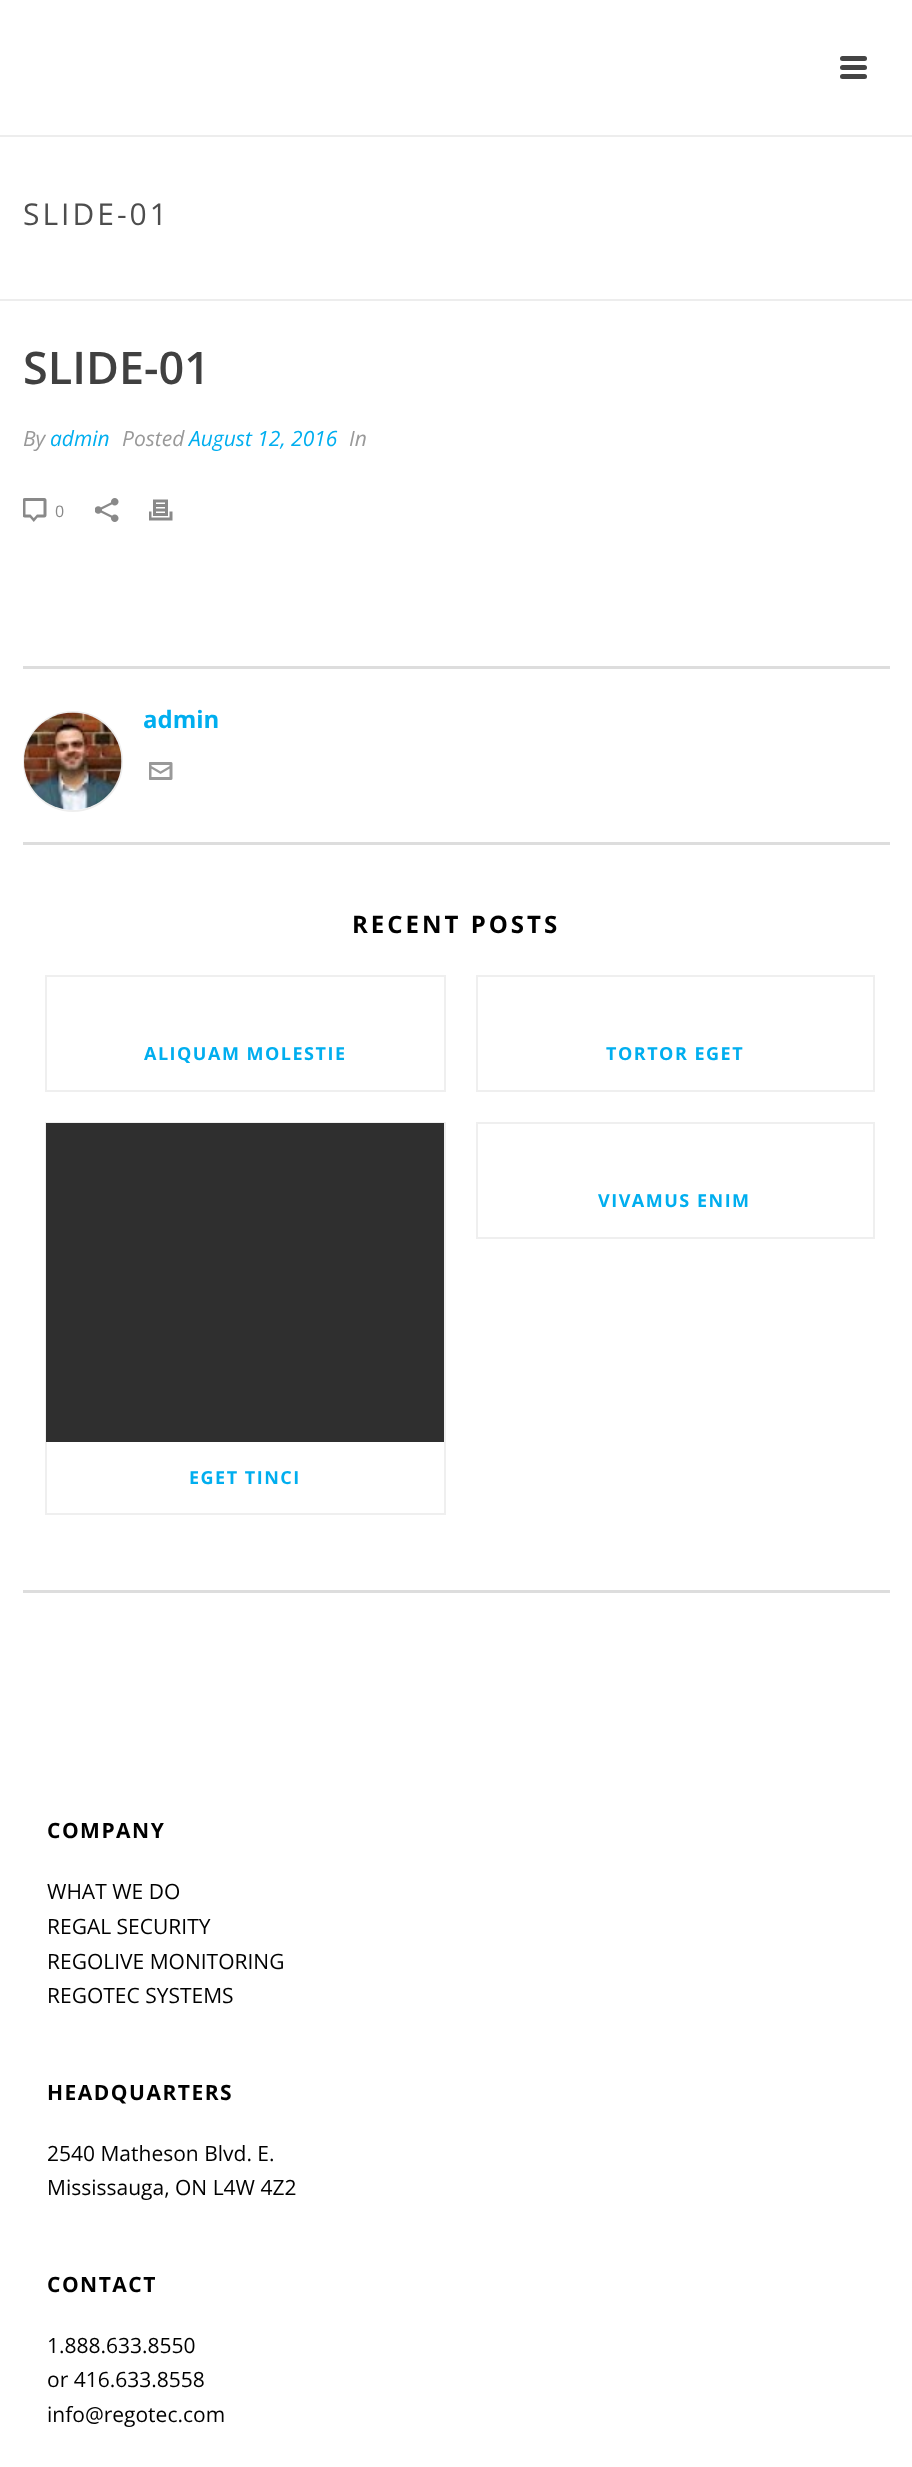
<!DOCTYPE html>
<meta charset="utf-8">
<style>body { margin: 0 } canvas { display: block }</style>
<canvas id="canvas" width="912" height="2467"></canvas>
<script type="module">
  const canvas = document.getElementById("canvas");
  const ctx = canvas.getContext("2d");
  ctx.miterLimit = 4;
  ctx.fontKerning = "normal";
  async function loadImage(src) {
    const img = new Image();
    img.src = src;
    await img.decode();
    return img;
  }

  ctx.fillStyle = "#ffffff";
  ctx.fillRect(0, 0, 912, 2467);
  ctx.fillStyle = "#ededed";
  ctx.fillRect(0, 299, 912, 2);
  ctx.fillRect(0, 135, 912, 2);
  ctx.fillStyle = "#444444";
  ctx.beginPath();
  ctx.roundRect(840, 56, 27, 5, 2.5);
  ctx.fill();
  ctx.beginPath();
  ctx.roundRect(840, 65, 27, 5, 2.5);
  ctx.fill();
  ctx.beginPath();
  ctx.roundRect(840, 74, 27, 5, 2.5);
  ctx.fill();
  ctx.letterSpacing = "3px";
  ctx.font = "30px Open Sans";
  ctx.fillStyle = "#4d4d4d";
  ctx.fillText("SLIDE-01", 23, 225);
  ctx.letterSpacing = "0px";
  ctx.font = "600 45px Open Sans";
  ctx.fillStyle = "#404040";
  ctx.fillText("SLIDE-01", 23, 384);
  ctx.font = "italic 21px Open Sans";
  ctx.fillStyle = "#999999";
  ctx.fillText("By", 23, 446);
  ctx.fillStyle = "#00aeef";
  ctx.fillText("admin", 50, 446);
  ctx.fillStyle = "#999999";
  ctx.fillText("Posted", 122, 446);
  ctx.fillStyle = "#00aeef";
  ctx.fillText("August 12, 2016", 189, 446);
  ctx.fillStyle = "#999999";
  ctx.fillText("In", 349, 446);
  ctx.drawImage(await loadImage("img1.png"), 23, 498, 24, 24);
  ctx.font = "16px Open Sans";
  ctx.fillStyle = "#898989";
  ctx.fillText("0", 55, 517);
  ctx.drawImage(await loadImage("img2.png"), 95, 498, 24, 24);
  ctx.drawImage(await loadImage("img3.png"), 149, 499, 24, 22);
  ctx.fillStyle = "#dddddd";
  ctx.fillRect(23, 666, 867, 3);
  ctx.fillRect(23, 842, 867, 3);
  ctx.beginPath();
  ctx.roundRect(24, 712, 98, 99, 49);
  ctx.strokeStyle = "#eeeeee";
  ctx.lineWidth = 2;
  ctx.stroke();
  ctx.drawImage(await loadImage("img4.png"), 24, 712, 98, 98);
  ctx.font = "bold 24px Open Sans";
  ctx.fillStyle = "#00aeef";
  ctx.fillText("admin", 143, 728);
  ctx.drawImage(await loadImage("img5.png"), 149, 762, 24, 18);
  ctx.fillStyle = "#dddddd";
  ctx.fillRect(23, 1590, 867, 3);
  ctx.letterSpacing = "3px";
  ctx.fillStyle = "#000000";
  ctx.fillText("RECENT POSTS", 352, 933);
  ctx.strokeStyle = "#efefef";
  ctx.strokeRect(46, 976, 399, 115);
  ctx.letterSpacing = "1.5px";
  ctx.font = "bold 18px Open Sans";
  ctx.fillStyle = "#00aeef";
  ctx.fillText("ALIQUAM MOLESTIE", 144, 1060);
  ctx.strokeRect(477, 976, 397, 115);
  ctx.fillText("TORTOR EGET", 606, 1060);
  ctx.strokeRect(477, 1123, 397, 115);
  ctx.fillText("VIVAMUS ENIM", 598, 1207);
  ctx.strokeRect(46, 1123, 399, 391);
  ctx.fillStyle = "#2f2f2f";
  ctx.fillRect(46, 1123, 398, 319);
  ctx.fillStyle = "#00aeef";
  ctx.fillText("EGET TINCI", 189, 1484);
  ctx.font = "bold 21px Open Sans";
  ctx.fillStyle = "#000000";
  ctx.fillText("COMPANY", 47, 1838);
  ctx.letterSpacing = "0px";
  ctx.font = "21px Open Sans";
  ctx.fillText("WHAT WE DO", 47, 1899);
  ctx.fillText("REGAL SECURITY", 47, 1934);
  ctx.fillText("REGOLIVE MONITORING", 47, 1969);
  ctx.fillText("REGOTEC SYSTEMS", 47, 2003);
  ctx.letterSpacing = "1.5px";
  ctx.font = "bold 21px Open Sans";
  ctx.fillText("HEADQUARTERS", 47, 2100);
  ctx.letterSpacing = "0px";
  ctx.font = "21px Open Sans";
  ctx.fillText("2540 Matheson Blvd. E.", 47, 2161);
  ctx.fillText("Mississauga, ON L4W 4Z2", 47, 2195);
  ctx.letterSpacing = "1.5px";
  ctx.font = "bold 21px Open Sans";
  ctx.fillText("CONTACT", 47, 2292);
  ctx.letterSpacing = "0px";
  ctx.font = "21px Open Sans";
  ctx.fillText("1.888.633.8550", 47, 2353);
  ctx.fillText("or 416.633.8558", 47, 2387);
  ctx.fillText("info@regotec.com", 47, 2422);
</script>
